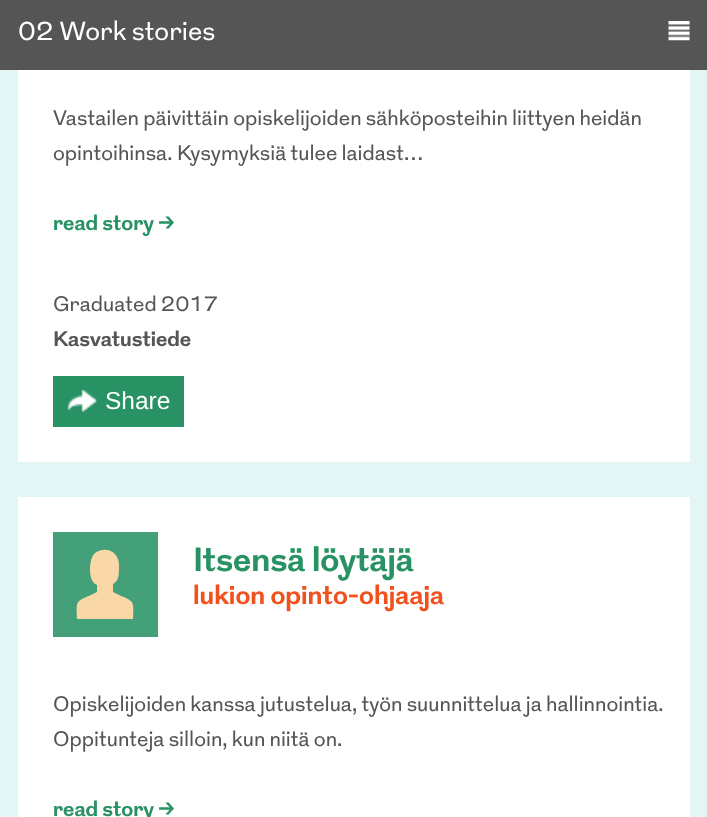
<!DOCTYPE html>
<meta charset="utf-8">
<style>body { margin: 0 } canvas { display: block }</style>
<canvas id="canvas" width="707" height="817"></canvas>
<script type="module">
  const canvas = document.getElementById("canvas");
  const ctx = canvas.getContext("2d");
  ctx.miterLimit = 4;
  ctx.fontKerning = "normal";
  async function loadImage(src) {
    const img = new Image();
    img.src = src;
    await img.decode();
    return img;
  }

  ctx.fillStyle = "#e4f5f6";
  ctx.fillRect(0, 0, 707, 817);
  ctx.fillStyle = "#555555";
  ctx.fillRect(0, 0, 707, 70);
  ctx.font = "26.25px 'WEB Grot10'";
  ctx.fillStyle = "#ffffff";
  ctx.fillText("02 Work stories", 18, 40);
  ctx.drawImage(await loadImage("img1.png"), 668, 21, 22, 20);
  ctx.fillRect(18, 70, 672, 392);
  ctx.font = "21px 'WEB Grot10'";
  ctx.fillStyle = "#555555";
  ctx.fillText("Vastailen päivittäin opiskelijoiden sähköposteihin liittyen heidän", 53, 125);
  ctx.fillText("opintoihinsa. Kysymyksiä tulee laidast…", 53, 160);
  ctx.font = "bold 21px 'WEB Grot10'";
  ctx.fillStyle = "#289264";
  ctx.fillText("read story >", 53, 230);
  ctx.font = "21px 'WEB Grot10'";
  ctx.fillStyle = "#555555";
  ctx.fillText("Graduated 2017", 53, 311);
  ctx.font = "bold 21px 'WEB Grot10'";
  ctx.fillText("Kasvatustiede", 53, 346);
  ctx.fillStyle = "#289264";
  ctx.fillRect(53, 376, 131, 51);
  ctx.drawImage(await loadImage("img2.png"), 67, 389, 30, 23);
  ctx.font = "24.5px Liberation Sans";
  ctx.fillStyle = "#ffffff";
  ctx.fillText("Share", 105, 409);
  ctx.fillRect(18, 497, 672, 320);
  ctx.save();
  ctx.beginPath();
  ctx.rect(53, 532, 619, 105);
  ctx.clip();
  ctx.fillStyle = "rgba(0, 0, 0, 0.06)";
  ctx.filter = "blur(2.5px)";
  ctx.beginPath();
  ctx.roundRect(53, 534, 105, 105, 7);
  ctx.fill();
  ctx.filter = "none";
  ctx.restore();
  ctx.fillStyle = "#44a079";
  ctx.fillRect(53, 532, 105, 105);
  ctx.fillStyle = "#f9d7a7";
  ctx.beginPath();
  ctx.moveTo(133, 619);
  ctx.lineTo(77, 619);
  ctx.bezierCurveTo(76, 599, 76, 602, 93, 594);
  ctx.lineTo(97, 592);
  ctx.lineTo(97, 585);
  ctx.lineTo(95, 584);
  ctx.bezierCurveTo(88, 578, 89, 560, 94, 554);
  ctx.bezierCurveTo(102, 547, 114, 549, 118, 559);
  ctx.bezierCurveTo(119, 562, 119, 564, 119, 567);
  ctx.bezierCurveTo(119, 574, 119, 581, 113, 584);
  ctx.lineTo(113, 592);
  ctx.lineTo(117, 594);
  ctx.bezierCurveTo(134, 602, 134, 599, 133, 619);
  ctx.closePath();
  ctx.fill("evenodd");
  ctx.font = "bold 33.5px 'WEB Grot10'";
  ctx.fillStyle = "#289264";
  ctx.fillText("Itsensä löytäjä", 193, 571);
  ctx.font = "bold 26.25px 'WEB Grot10'";
  ctx.fillStyle = "#f1521d";
  ctx.fillText("lukion opinto-ohjaaja", 193, 604);
  ctx.font = "21px 'WEB Grot10'";
  ctx.fillStyle = "#555555";
  ctx.fillText("Opiskelijoiden kanssa jutustelua, työn suunnittelua ja hallinnointia.", 53, 711);
  ctx.fillText("Oppitunteja silloin, kun niitä on.", 53, 746);
  ctx.font = "bold 21px 'WEB Grot10'";
  ctx.fillStyle = "#289264";
  ctx.fillText("read story >", 53, 816);
</script>
